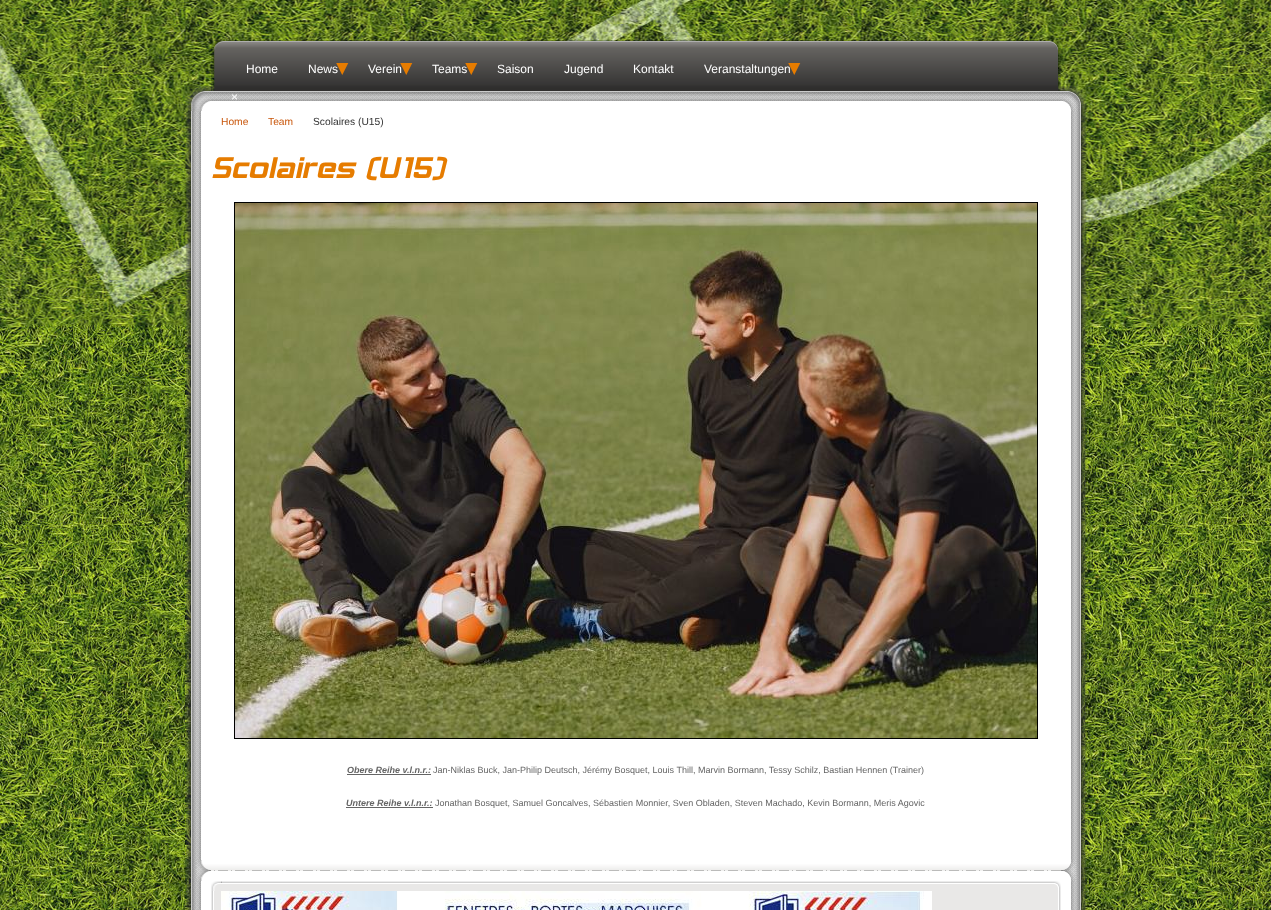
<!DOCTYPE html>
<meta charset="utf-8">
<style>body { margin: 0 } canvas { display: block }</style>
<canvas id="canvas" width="1271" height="910"></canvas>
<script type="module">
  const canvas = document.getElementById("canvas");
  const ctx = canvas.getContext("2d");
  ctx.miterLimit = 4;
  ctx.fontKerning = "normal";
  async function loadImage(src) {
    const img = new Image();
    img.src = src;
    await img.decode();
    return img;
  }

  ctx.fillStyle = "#ffffff";
  ctx.fillRect(0, 0, 1271, 910);
  ctx.drawImage(await loadImage("img1.png"), 0, 325, 1271, 585);
  ctx.drawImage(await loadImage("img2.png"), 0, 0, 1271, 325);
  ctx.drawImage(await loadImage("img6.png"), 186, 86, 26, 25);
  ctx.drawImage(await loadImage("img8.png"), 211, 86, 850, 25);
  ctx.drawImage(await loadImage("img3.png"), 211, 40, 16, 51);
  ctx.drawImage(await loadImage("img4.png"), 1046, 40, 15, 51);
  ctx.drawImage(await loadImage("img5.png"), 226, 40, 820, 51);
  ctx.font = "12px Liberation Sans";
  ctx.fillText("Home", 246, 73);
  ctx.fillText("News", 308, 73);
  ctx.font = "24px DejaVu Sans";
  ctx.fillStyle = "#e67c00";
  ctx.save();
  ctx.translate(336, 63);
  ctx.rotate(90 * Math.PI / 180);
  ctx.fillText("▸", 0, 0);
  ctx.restore();
  ctx.font = "12px Liberation Sans";
  ctx.fillStyle = "#ffffff";
  ctx.fillText("Verein", 368, 73);
  ctx.font = "24px DejaVu Sans";
  ctx.fillStyle = "#e67c00";
  ctx.save();
  ctx.translate(400, 63);
  ctx.rotate(90 * Math.PI / 180);
  ctx.fillText("▸", 0, 0);
  ctx.restore();
  ctx.font = "12px Liberation Sans";
  ctx.fillStyle = "#ffffff";
  ctx.fillText("Teams", 432, 73);
  ctx.font = "24px DejaVu Sans";
  ctx.fillStyle = "#e67c00";
  ctx.save();
  ctx.translate(465, 63);
  ctx.rotate(90 * Math.PI / 180);
  ctx.fillText("▸", 0, 0);
  ctx.restore();
  ctx.font = "12px Liberation Sans";
  ctx.fillStyle = "#ffffff";
  ctx.fillText("Saison", 497, 73);
  ctx.fillText("Jugend", 564, 73);
  ctx.fillText("Kontakt", 633, 73);
  ctx.fillText("Veranstaltungen", 704, 73);
  ctx.font = "24px DejaVu Sans";
  ctx.fillStyle = "#e67c00";
  ctx.save();
  ctx.translate(788, 63);
  ctx.rotate(90 * Math.PI / 180);
  ctx.fillText("▸", 0, 0);
  ctx.restore();
  ctx.font = "12px Liberation Sans";
  ctx.fillStyle = "#ffffff";
  ctx.fillText("×", 231, 101);
  ctx.drawImage(await loadImage("img7.png"), 1061, 86, 25, 25);
  ctx.drawImage(await loadImage("img9.png"), 186, 111, 10, 799);
  ctx.drawImage(await loadImage("img10.png"), 1076, 111, 10, 799);
  ctx.drawImage(await loadImage("img11.png"), 196, 111, 15, 749);
  ctx.drawImage(await loadImage("img12.png"), 1061, 111, 15, 749);
  ctx.fillRect(211, 111, 850, 749);
  ctx.font = "10.25px Liberation Sans";
  ctx.fillStyle = "#c9570c";
  ctx.fillText("Home", 221, 125);
  ctx.fillText("Team", 268, 125);
  ctx.fillStyle = "#323232";
  ctx.fillText("Scolaires (U15)", 313, 125);
  ctx.font = "36px 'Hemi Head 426'";
  ctx.fillStyle = "#e67c00";
  ctx.fillText("Scolaires (U15)", 211, 178);
  ctx.strokeStyle = "#000000";
  ctx.strokeRect(234.5, 202.5, 803, 536);
  ctx.drawImage(await loadImage("img13.png"), 235, 203, 802, 535);
  ctx.font = "italic bold 9px Liberation Sans";
  ctx.fillStyle = "#646464";
  ctx.fillText("Obere Reihe v.l.n.r.:", 347, 773);
  ctx.fillRect(347, 774, 84, 1);
  ctx.font = "9px Liberation Sans";
  ctx.fillText("Jan-Niklas Buck, Jan-Philip Deutsch, Jérémy Bosquet, Louis Thill, Marvin Bormann, Tessy Schilz, Bastian Hennen (Trainer)", 433, 773);
  ctx.font = "italic bold 9px Liberation Sans";
  ctx.fillText("Untere Reihe v.l.n.r.:", 346, 806);
  ctx.fillRect(346, 807, 87, 1);
  ctx.font = "9px Liberation Sans";
  ctx.fillText("Jonathan Bosquet, Samuel Goncalves, Sébastien Monnier, Sven Obladen, Steven Machado, Kevin Bormann, Meris Agovic", 435, 806);
  ctx.drawImage(await loadImage("img14.png"), 196, 860, 15, 21);
  ctx.drawImage(await loadImage("img15.png"), 1061, 860, 15, 21);
  ctx.drawImage(await loadImage("img16.png"), 211, 860, 850, 21);
  ctx.drawImage(await loadImage("img17.png"), 196, 881, 15, 29);
  ctx.drawImage(await loadImage("img18.png"), 1061, 881, 15, 29);
  ctx.fillStyle = "#ffffff";
  ctx.fillRect(211, 881, 850, 29);
  ctx.drawImage(await loadImage("img19.png"), 211, 881, 11, 10);
  ctx.drawImage(await loadImage("img20.png"), 1051, 881, 10, 10);
  ctx.drawImage(await loadImage("img21.png"), 221, 881, 830, 10);
  ctx.drawImage(await loadImage("img22.png"), 211, 891, 10, 19);
  ctx.drawImage(await loadImage("img23.png"), 1051, 891, 10, 19);
  ctx.fillStyle = "#e9e8e7";
  ctx.fillRect(932, 891, 119, 19);
  ctx.drawImage(await loadImage("img24.png"), 221, 891, 711, 19);
</script>
